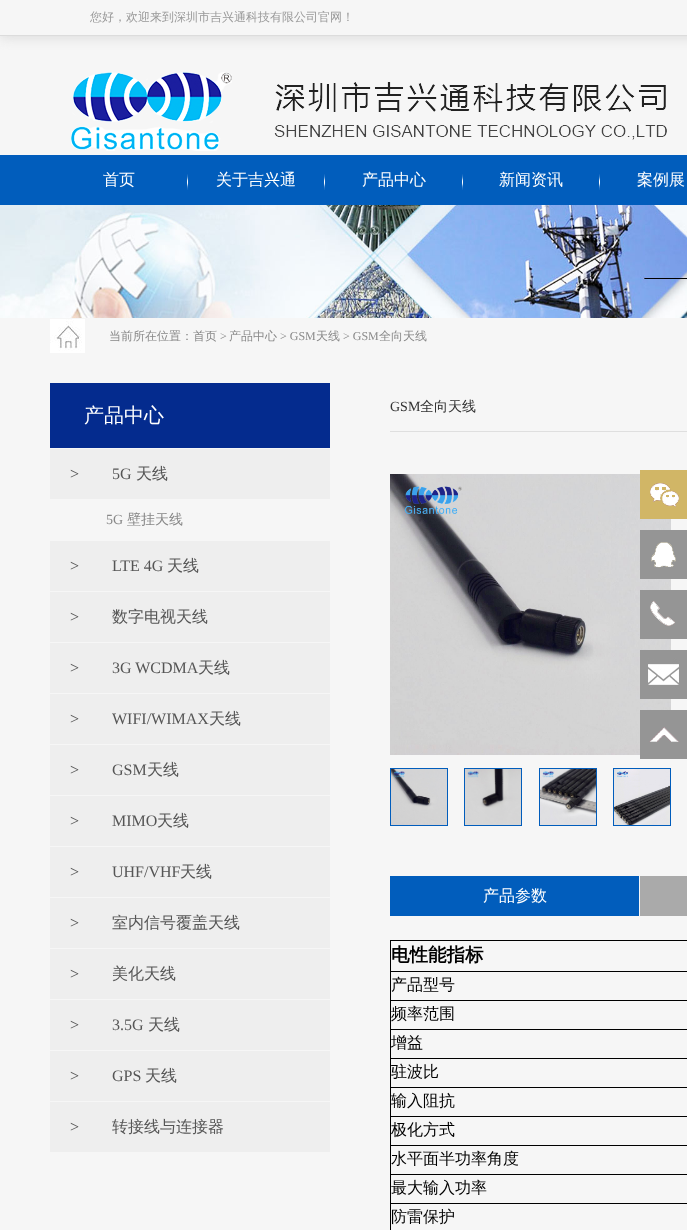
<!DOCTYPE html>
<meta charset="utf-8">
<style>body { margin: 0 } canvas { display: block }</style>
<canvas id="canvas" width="687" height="1230"></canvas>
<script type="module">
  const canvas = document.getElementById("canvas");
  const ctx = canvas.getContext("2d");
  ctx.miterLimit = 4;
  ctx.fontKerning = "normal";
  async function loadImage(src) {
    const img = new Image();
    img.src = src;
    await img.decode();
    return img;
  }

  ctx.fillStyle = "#f6f6f6";
  ctx.fillRect(0, 0, 687, 1230);
  ctx.save();
  ctx.beginPath();
  ctx.rect(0, 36, 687, 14);
  ctx.clip();
  ctx.fillStyle = "#dcdcdc";
  ctx.filter = "blur(6px)";
  ctx.beginPath();
  ctx.rect(0, 2, 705, 36);
  ctx.fill();
  ctx.filter = "none";
  ctx.restore();
  ctx.fillStyle = "#dcdcdc";
  ctx.fillRect(0, 35, 687, 1);
  ctx.font = "500 12px WenQuanYi Zen Hei";
  ctx.fillStyle = "#999999";
  ctx.fillText("您好，欢迎来到深圳市吉兴通科技有限公司官网！", 90, 21);
  ctx.drawImage(await loadImage("img1.png"), 71, 72, 161, 79);
  ctx.drawImage(await loadImage("img2.png"), 274, 82, 393, 58);
  ctx.fillStyle = "#015dbc";
  ctx.fillRect(0, 155, 687, 50);
  ctx.drawImage(await loadImage("img3.png"), 187, 174, 1, 16);
  ctx.font = "500 16px WenQuanYi Zen Hei";
  ctx.fillStyle = "#ffffff";
  ctx.fillText("首页", 103, 185);
  ctx.drawImage(await loadImage("img3.png"), 324, 174, 1, 16);
  ctx.fillText("关于吉兴通", 216, 185);
  ctx.drawImage(await loadImage("img3.png"), 462, 174, 1, 16);
  ctx.fillText("产品中心", 362, 185);
  ctx.drawImage(await loadImage("img3.png"), 599, 174, 1, 16);
  ctx.fillText("新闻资讯", 499, 185);
  ctx.fillText("案例展", 637, 185);
  ctx.drawImage(await loadImage("img4.png"), 0, 205, 687, 113);
  ctx.drawImage(await loadImage("img5.png"), 50, 319, 35, 34);
  ctx.font = "500 12px WenQuanYi Zen Hei";
  ctx.fillStyle = "#888888";
  ctx.fillText("当前所在位置：首页", 109, 340);
  ctx.font = "12px Liberation Serif";
  ctx.fillText(">", 220, 340);
  ctx.font = "500 12px WenQuanYi Zen Hei";
  ctx.fillText("产品中心", 229, 340);
  ctx.font = "12px Liberation Serif";
  ctx.fillText("> GSM", 280, 340);
  ctx.font = "500 12px WenQuanYi Zen Hei";
  ctx.fillText("天线", 316, 340);
  ctx.font = "12px Liberation Serif";
  ctx.fillText("> GSM", 343, 340);
  ctx.font = "500 12px WenQuanYi Zen Hei";
  ctx.fillText("全向天线", 379, 340);
  ctx.fillStyle = "#042b8e";
  ctx.fillRect(50, 383, 280, 65);
  ctx.font = "500 20px WenQuanYi Zen Hei";
  ctx.fillStyle = "#ffffff";
  ctx.fillText("产品中心", 84, 422);
  ctx.fillStyle = "#eeeeee";
  ctx.fillRect(50, 449, 280, 50);
  ctx.font = "16px Liberation Serif";
  ctx.fillStyle = "#555555";
  ctx.fillText(">", 70, 479);
  ctx.fillText("5G", 112, 479);
  ctx.font = "500 16px WenQuanYi Zen Hei";
  ctx.fillText("天线", 136, 479);
  ctx.font = "14px Liberation Serif";
  ctx.fillStyle = "#888888";
  ctx.fillText("5G", 106, 524);
  ctx.font = "500 14px WenQuanYi Zen Hei";
  ctx.fillText("壁挂天线", 127, 524);
  ctx.fillStyle = "#eeeeee";
  ctx.fillRect(50, 541, 280, 50);
  ctx.font = "16px Liberation Serif";
  ctx.fillStyle = "#555555";
  ctx.fillText(">", 70, 571);
  ctx.fillText("LTE 4G", 112, 571);
  ctx.font = "500 16px WenQuanYi Zen Hei";
  ctx.fillText("天线", 167, 571);
  ctx.fillStyle = "#eeeeee";
  ctx.fillRect(50, 592, 280, 50);
  ctx.font = "16px Liberation Serif";
  ctx.fillStyle = "#555555";
  ctx.fillText(">", 70, 622);
  ctx.font = "500 16px WenQuanYi Zen Hei";
  ctx.fillText("数字电视天线", 112, 622);
  ctx.fillStyle = "#eeeeee";
  ctx.fillRect(50, 643, 280, 50);
  ctx.font = "16px Liberation Serif";
  ctx.fillStyle = "#555555";
  ctx.fillText(">", 70, 673);
  ctx.fillText("3G WCDMA", 112, 673);
  ctx.font = "500 16px WenQuanYi Zen Hei";
  ctx.fillText("天线", 198, 673);
  ctx.fillStyle = "#eeeeee";
  ctx.fillRect(50, 694, 280, 50);
  ctx.font = "16px Liberation Serif";
  ctx.fillStyle = "#555555";
  ctx.fillText(">", 70, 724);
  ctx.fillText("WIFI/WIMAX", 112, 724);
  ctx.font = "500 16px WenQuanYi Zen Hei";
  ctx.fillText("天线", 209, 724);
  ctx.fillStyle = "#eeeeee";
  ctx.fillRect(50, 745, 280, 50);
  ctx.font = "16px Liberation Serif";
  ctx.fillStyle = "#555555";
  ctx.fillText(">", 70, 775);
  ctx.fillText("GSM", 112, 775);
  ctx.font = "500 16px WenQuanYi Zen Hei";
  ctx.fillText("天线", 147, 775);
  ctx.fillStyle = "#eeeeee";
  ctx.fillRect(50, 796, 280, 50);
  ctx.font = "16px Liberation Serif";
  ctx.fillStyle = "#555555";
  ctx.fillText(">", 70, 826);
  ctx.fillText("MIMO", 112, 826);
  ctx.font = "500 16px WenQuanYi Zen Hei";
  ctx.fillText("天线", 157, 826);
  ctx.fillStyle = "#eeeeee";
  ctx.fillRect(50, 847, 280, 50);
  ctx.font = "16px Liberation Serif";
  ctx.fillStyle = "#555555";
  ctx.fillText(">", 70, 877);
  ctx.fillText("UHF/VHF", 112, 877);
  ctx.font = "500 16px WenQuanYi Zen Hei";
  ctx.fillText("天线", 180, 877);
  ctx.fillStyle = "#eeeeee";
  ctx.fillRect(50, 898, 280, 50);
  ctx.font = "16px Liberation Serif";
  ctx.fillStyle = "#555555";
  ctx.fillText(">", 70, 928);
  ctx.font = "500 16px WenQuanYi Zen Hei";
  ctx.fillText("室内信号覆盖天线", 112, 928);
  ctx.fillStyle = "#eeeeee";
  ctx.fillRect(50, 949, 280, 50);
  ctx.font = "16px Liberation Serif";
  ctx.fillStyle = "#555555";
  ctx.fillText(">", 70, 979);
  ctx.font = "500 16px WenQuanYi Zen Hei";
  ctx.fillText("美化天线", 112, 979);
  ctx.fillStyle = "#eeeeee";
  ctx.fillRect(50, 1000, 280, 50);
  ctx.font = "16px Liberation Serif";
  ctx.fillStyle = "#555555";
  ctx.fillText(">", 70, 1030);
  ctx.fillText("3.5G", 112, 1030);
  ctx.font = "500 16px WenQuanYi Zen Hei";
  ctx.fillText("天线", 148, 1030);
  ctx.fillStyle = "#eeeeee";
  ctx.fillRect(50, 1051, 280, 50);
  ctx.font = "16px Liberation Serif";
  ctx.fillStyle = "#555555";
  ctx.fillText(">", 70, 1081);
  ctx.fillText("GPS", 112, 1081);
  ctx.font = "500 16px WenQuanYi Zen Hei";
  ctx.fillText("天线", 145, 1081);
  ctx.fillStyle = "#eeeeee";
  ctx.fillRect(50, 1102, 280, 50);
  ctx.font = "16px Liberation Serif";
  ctx.fillStyle = "#555555";
  ctx.fillText(">", 70, 1132);
  ctx.font = "500 16px WenQuanYi Zen Hei";
  ctx.fillText("转接线与连接器", 112, 1132);
  ctx.fillStyle = "#dfdfdf";
  ctx.fillRect(390, 431, 297, 1);
  ctx.font = "14px Liberation Serif";
  ctx.fillStyle = "#333333";
  ctx.fillText("GSM", 390, 411);
  ctx.font = "500 14px WenQuanYi Zen Hei";
  ctx.fillText("全向天线", 420, 411);
  ctx.drawImage(await loadImage("img6.png"), 390, 474, 281, 281);
  ctx.strokeStyle = "#015dbc";
  ctx.strokeRect(390.5, 768.5, 57, 57);
  ctx.drawImage(await loadImage("img7.png"), 391, 769, 56, 56);
  ctx.strokeRect(464.5, 768.5, 57, 57);
  ctx.drawImage(await loadImage("img8.png"), 465, 769, 56, 56);
  ctx.strokeRect(539.5, 768.5, 57, 57);
  ctx.drawImage(await loadImage("img9.png"), 540, 769, 56, 56);
  ctx.strokeRect(613.5, 768.5, 57, 57);
  ctx.drawImage(await loadImage("img10.png"), 614, 769, 56, 56);
  ctx.fillStyle = "#015dbc";
  ctx.fillRect(390, 876, 249, 40);
  ctx.font = "500 16px WenQuanYi Zen Hei";
  ctx.fillStyle = "#ffffff";
  ctx.fillText("产品参数", 483, 901);
  ctx.fillStyle = "#aaaaaa";
  ctx.fillRect(640, 876, 47, 40);
  ctx.fillStyle = "#000000";
  ctx.fillRect(390, 940, 297, 1);
  ctx.fillRect(390, 971, 297, 1);
  ctx.fillRect(390, 1000, 297, 1);
  ctx.fillRect(390, 1029, 297, 1);
  ctx.fillRect(390, 1058, 297, 1);
  ctx.fillRect(390, 1087, 297, 1);
  ctx.fillRect(390, 1116, 297, 1);
  ctx.fillRect(390, 1145, 297, 1);
  ctx.fillRect(390, 1174, 297, 1);
  ctx.fillRect(390, 1203, 297, 1);
  ctx.fillRect(390, 1203, 1, 27);
  ctx.fillRect(390, 1174, 1, 30);
  ctx.fillRect(390, 1145, 1, 30);
  ctx.fillRect(390, 1116, 1, 30);
  ctx.fillRect(390, 1087, 1, 30);
  ctx.fillRect(390, 1058, 1, 30);
  ctx.fillRect(390, 1029, 1, 30);
  ctx.fillRect(390, 1000, 1, 30);
  ctx.fillRect(390, 971, 1, 30);
  ctx.fillRect(390, 940, 1, 32);
  ctx.font = "bold 18.5px WenQuanYi Zen Hei";
  ctx.fillText("电性能指标", 391, 961);
  ctx.font = "500 16px WenQuanYi Zen Hei";
  ctx.fillText("产品型号", 391, 990);
  ctx.fillText("频率范围", 391, 1019);
  ctx.fillText("增益", 391, 1048);
  ctx.fillText("驻波比", 391, 1077);
  ctx.fillText("输入阻抗", 391, 1106);
  ctx.fillText("极化方式", 391, 1135);
  ctx.fillText("水平面半功率角度", 391, 1164);
  ctx.fillText("最大输入功率", 391, 1193);
  ctx.fillText("防雷保护", 391, 1222);
  ctx.drawImage(await loadImage("img11.png"), 640, 470, 47, 49);
  ctx.drawImage(await loadImage("img12.png"), 640, 530, 47, 49);
  ctx.drawImage(await loadImage("img13.png"), 640, 590, 47, 49);
  ctx.drawImage(await loadImage("img14.png"), 640, 650, 47, 49);
  ctx.drawImage(await loadImage("img15.png"), 640, 710, 47, 49);
</script>
